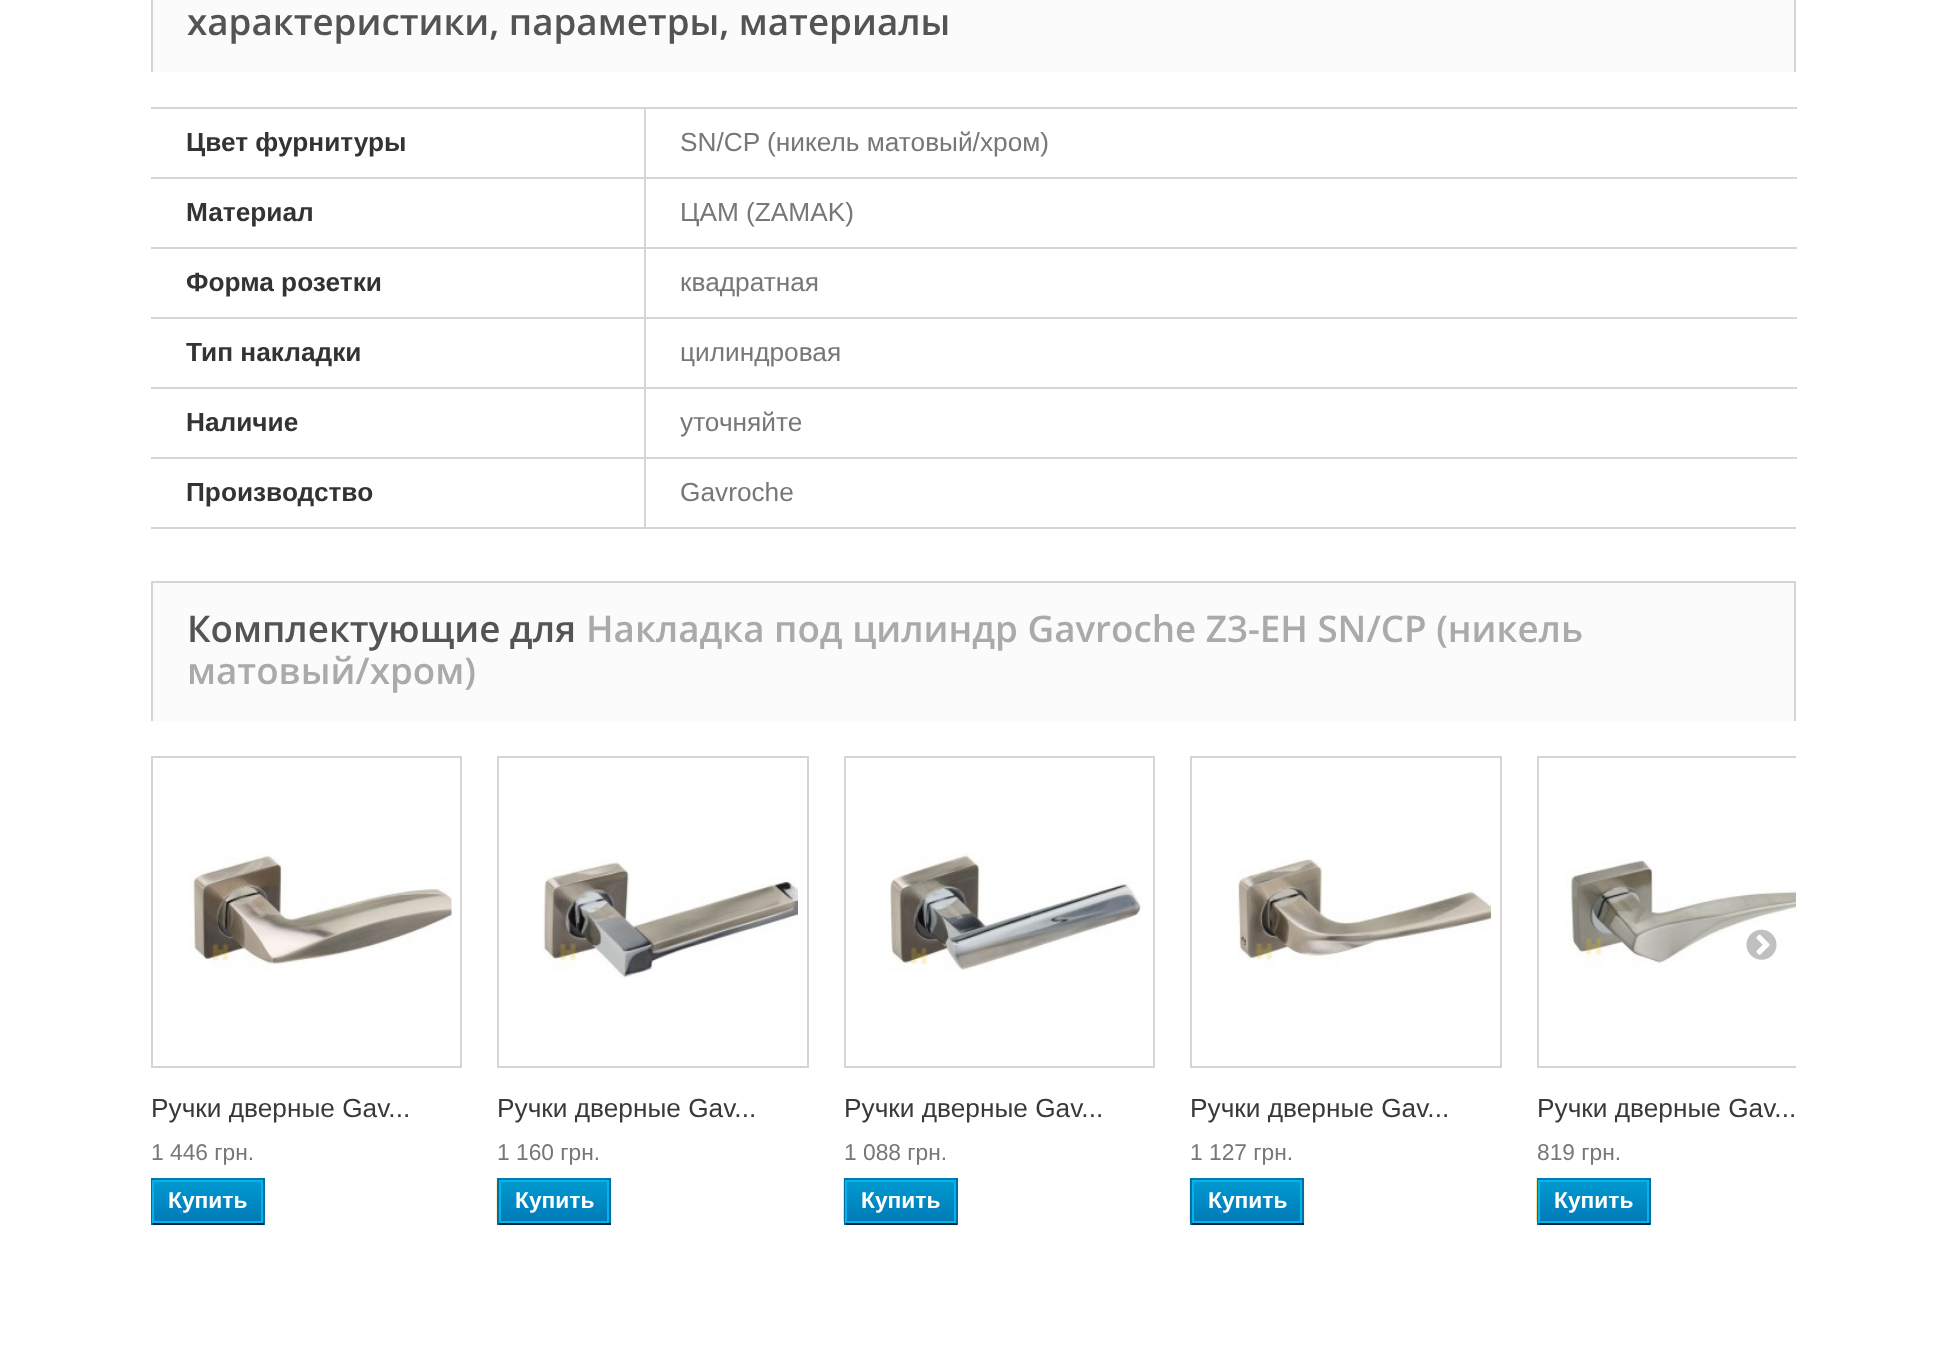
<!DOCTYPE html>
<meta charset="utf-8">
<style>body { margin: 0 } canvas { display: block }</style>
<canvas id="canvas" width="1946" height="1358"></canvas>
<script type="module">
  const canvas = document.getElementById("canvas");
  const ctx = canvas.getContext("2d");
  ctx.miterLimit = 4;
  ctx.fontKerning = "normal";
  async function loadImage(src) {
    const img = new Image();
    img.src = src;
    await img.decode();
    return img;
  }
  let gradient;

  ctx.fillStyle = "#ffffff";
  ctx.fillRect(0, 0, 1946, 1358);
  ctx.fillStyle = "#fbfbfb";
  ctx.fillRect(153, 0, 1641, 72);
  ctx.fillStyle = "#d6d4d4";
  ctx.fillRect(1794, 0, 2, 72);
  ctx.fillRect(151, 0, 2, 72);
  ctx.font = "600 36.75px Open Sans";
  ctx.fillStyle = "#555454";
  ctx.fillText("характеристики, параметры, материалы", 187, 35);
  ctx.fillStyle = "#d6d4d4";
  ctx.fillRect(151, 527, 1645, 2);
  ctx.fillRect(151, 107, 1646, 2);
  ctx.font = "bold 26.25px Liberation Sans";
  ctx.fillStyle = "#333333";
  ctx.fillText("Цвет фурнитуры", 186, 151);
  ctx.font = "26.25px Liberation Sans";
  ctx.fillStyle = "#777777";
  ctx.fillText("SN/CP (никель матовый/хром)", 680, 151);
  ctx.fillStyle = "#d6d4d4";
  ctx.fillRect(151, 177, 1646, 2);
  ctx.font = "bold 26.25px Liberation Sans";
  ctx.fillStyle = "#333333";
  ctx.fillText("Материал", 186, 221);
  ctx.font = "26.25px Liberation Sans";
  ctx.fillStyle = "#777777";
  ctx.fillText("ЦАМ (ZAMAK)", 680, 221);
  ctx.fillStyle = "#d6d4d4";
  ctx.fillRect(151, 247, 1646, 2);
  ctx.font = "bold 26.25px Liberation Sans";
  ctx.fillStyle = "#333333";
  ctx.fillText("Форма розетки", 186, 291);
  ctx.font = "26.25px Liberation Sans";
  ctx.fillStyle = "#777777";
  ctx.fillText("квадратная", 680, 291);
  ctx.fillStyle = "#d6d4d4";
  ctx.fillRect(151, 317, 1646, 2);
  ctx.font = "bold 26.25px Liberation Sans";
  ctx.fillStyle = "#333333";
  ctx.fillText("Тип накладки", 186, 361);
  ctx.font = "26.25px Liberation Sans";
  ctx.fillStyle = "#777777";
  ctx.fillText("цилиндровая", 680, 361);
  ctx.fillStyle = "#d6d4d4";
  ctx.fillRect(151, 387, 1646, 2);
  ctx.font = "bold 26.25px Liberation Sans";
  ctx.fillStyle = "#333333";
  ctx.fillText("Наличие", 186, 431);
  ctx.font = "26.25px Liberation Sans";
  ctx.fillStyle = "#777777";
  ctx.fillText("уточняйте", 680, 431);
  ctx.fillStyle = "#d6d4d4";
  ctx.fillRect(151, 457, 1646, 2);
  ctx.fillRect(644, 107, 2, 422);
  ctx.font = "bold 26.25px Liberation Sans";
  ctx.fillStyle = "#333333";
  ctx.fillText("Производство", 186, 501);
  ctx.font = "26.25px Liberation Sans";
  ctx.fillStyle = "#777777";
  ctx.fillText("Gavroche", 680, 501);
  ctx.fillStyle = "#fbfbfb";
  ctx.fillRect(153, 583, 1641, 138);
  ctx.fillStyle = "#d6d4d4";
  ctx.fillRect(151, 581, 1645, 2);
  ctx.fillRect(1794, 581, 2, 140);
  ctx.fillRect(151, 581, 2, 140);
  ctx.font = "600 36.75px Open Sans";
  ctx.fillStyle = "#555454";
  ctx.fillText("Комплектующие для", 187, 642);
  ctx.fillStyle = "#aaaaaa";
  ctx.fillText("Накладка под цилиндр Gavroche Z3-EH SN/CP (никель", 586, 642);
  ctx.fillText("матовый/хром)", 187, 684);
  ctx.save();
  ctx.beginPath();
  ctx.rect(151, 756, 1645, 469);
  ctx.clip();
  ctx.strokeStyle = "#d6d4d4";
  ctx.lineWidth = 2;
  ctx.strokeRect(1538, 757, 309, 310);
  ctx.restore();
  ctx.drawImage(await loadImage("img8.png"), 1566, 859, 230, 109);
  ctx.drawImage(await loadImage("img1.png"), 1746, 929, 31, 31);
  ctx.strokeStyle = "#d6d4d4";
  ctx.lineWidth = 2;
  ctx.strokeRect(152, 757, 309, 310);
  ctx.drawImage(await loadImage("img2.png"), 189, 852, 263, 118);
  ctx.font = "26.25px Liberation Sans";
  ctx.fillStyle = "#3a3939";
  ctx.fillText("Ручки дверные Gav...", 151, 1117);
  ctx.font = "22.75px Liberation Sans";
  ctx.fillStyle = "#777777";
  ctx.fillText("1 446 грн.", 151, 1160);
  ctx.fillStyle = "#0079b6";
  ctx.fillRect(151, 1178, 113, 2);
  ctx.fillStyle = "#006fa8";
  ctx.fillRect(263, 1178, 2, 47);
  ctx.fillStyle = "#012740";
  ctx.fillRect(151, 1223, 113, 2);
  ctx.fillStyle = "#006fa8";
  ctx.fillRect(151, 1178, 2, 47);
  gradient = ctx.createLinearGradient(207, 1181, 207, 1222);
  gradient.addColorStop(0, "#009ad0");
  gradient.addColorStop(1, "#007ab7");
  ctx.fillStyle = gradient;
  ctx.fillRect(154, 1182, 107, 39);
  ctx.strokeStyle = "#06b2e6";
  ctx.strokeRect(153, 1181, 109, 41);
  ctx.font = "bold 22.75px Liberation Sans";
  ctx.fillStyle = "#ffffff";
  ctx.fillText("Купить", 168, 1208);
  ctx.strokeStyle = "#d6d4d4";
  ctx.strokeRect(498, 757, 310, 310);
  ctx.drawImage(await loadImage("img3.png"), 543, 859, 255, 120);
  ctx.font = "26.25px Liberation Sans";
  ctx.fillStyle = "#3a3939";
  ctx.fillText("Ручки дверные Gav...", 497, 1117);
  ctx.font = "22.75px Liberation Sans";
  ctx.fillStyle = "#777777";
  ctx.fillText("1 160 грн.", 497, 1160);
  ctx.drawImage(await loadImage("img4.png"), 496, 1178, 116, 44);
  ctx.fillStyle = "#0079b6";
  ctx.fillRect(497, 1178, 114, 2);
  ctx.fillStyle = "#006fa8";
  ctx.fillRect(609, 1178, 2, 47);
  ctx.fillStyle = "#012740";
  ctx.fillRect(497, 1223, 114, 2);
  ctx.fillStyle = "#006fa8";
  ctx.fillRect(497, 1178, 2, 47);
  gradient = ctx.createLinearGradient(554, 1181, 554, 1222);
  gradient.addColorStop(0, "#009ad0");
  gradient.addColorStop(1, "#007ab7");
  ctx.fillStyle = gradient;
  ctx.fillRect(501, 1182, 106, 39);
  ctx.strokeStyle = "#06b2e6";
  ctx.strokeRect(500, 1181, 108, 41);
  ctx.font = "bold 22.75px Liberation Sans";
  ctx.fillStyle = "#ffffff";
  ctx.fillText("Купить", 515, 1208);
  ctx.strokeStyle = "#d6d4d4";
  ctx.strokeRect(845, 757, 309, 310);
  ctx.drawImage(await loadImage("img5.png"), 889, 852, 253, 119);
  ctx.font = "26.25px Liberation Sans";
  ctx.fillStyle = "#3a3939";
  ctx.fillText("Ручки дверные Gav...", 844, 1117);
  ctx.font = "22.75px Liberation Sans";
  ctx.fillStyle = "#777777";
  ctx.fillText("1 088 грн.", 844, 1160);
  ctx.drawImage(await loadImage("img6.png"), 843, 1178, 1, 44);
  ctx.fillStyle = "#0079b6";
  ctx.fillRect(844, 1178, 113, 2);
  ctx.fillStyle = "#006fa8";
  ctx.fillRect(956, 1178, 2, 47);
  ctx.fillStyle = "#012740";
  ctx.fillRect(844, 1223, 113, 2);
  ctx.fillStyle = "#006fa8";
  ctx.fillRect(844, 1178, 2, 47);
  gradient = ctx.createLinearGradient(900, 1181, 900, 1222);
  gradient.addColorStop(0, "#009ad0");
  gradient.addColorStop(1, "#007ab7");
  ctx.fillStyle = gradient;
  ctx.fillRect(847, 1182, 107, 39);
  ctx.strokeStyle = "#06b2e6";
  ctx.strokeRect(846, 1181, 109, 41);
  ctx.font = "bold 22.75px Liberation Sans";
  ctx.fillStyle = "#ffffff";
  ctx.fillText("Купить", 861, 1208);
  ctx.strokeStyle = "#d6d4d4";
  ctx.strokeRect(1191, 757, 310, 310);
  ctx.drawImage(await loadImage("img7.png"), 1237, 858, 254, 112);
  ctx.font = "26.25px Liberation Sans";
  ctx.fillStyle = "#3a3939";
  ctx.fillText("Ручки дверные Gav...", 1190, 1117);
  ctx.font = "22.75px Liberation Sans";
  ctx.fillStyle = "#777777";
  ctx.fillText("1 127 грн.", 1190, 1160);
  ctx.drawImage(await loadImage("img4.png"), 1189, 1178, 116, 44);
  ctx.fillStyle = "#0079b6";
  ctx.fillRect(1190, 1178, 114, 2);
  ctx.fillStyle = "#006fa8";
  ctx.fillRect(1302, 1178, 2, 47);
  ctx.fillStyle = "#012740";
  ctx.fillRect(1190, 1223, 114, 2);
  ctx.fillStyle = "#006fa8";
  ctx.fillRect(1190, 1178, 2, 47);
  gradient = ctx.createLinearGradient(1247, 1181, 1247, 1222);
  gradient.addColorStop(0, "#009ad0");
  gradient.addColorStop(1, "#007ab7");
  ctx.fillStyle = gradient;
  ctx.fillRect(1194, 1182, 106, 39);
  ctx.strokeStyle = "#06b2e6";
  ctx.strokeRect(1193, 1181, 108, 41);
  ctx.font = "bold 22.75px Liberation Sans";
  ctx.fillStyle = "#ffffff";
  ctx.fillText("Купить", 1208, 1208);
  ctx.font = "26.25px Liberation Sans";
  ctx.fillStyle = "#3a3939";
  ctx.fillText("Ручки дверные Gav...", 1537, 1117);
  ctx.font = "22.75px Liberation Sans";
  ctx.fillStyle = "#777777";
  ctx.fillText("819 грн.", 1537, 1160);
  ctx.drawImage(await loadImage("img6.png"), 1536, 1178, 1, 44);
  ctx.fillStyle = "#0079b6";
  ctx.fillRect(1537, 1178, 113, 2);
  ctx.fillStyle = "#006fa8";
  ctx.fillRect(1649, 1178, 2, 47);
  ctx.fillStyle = "#012740";
  ctx.fillRect(1537, 1223, 113, 2);
  ctx.fillStyle = "#006fa8";
  ctx.fillRect(1537, 1178, 2, 47);
  gradient = ctx.createLinearGradient(1593, 1181, 1593, 1222);
  gradient.addColorStop(0, "#009ad0");
  gradient.addColorStop(1, "#007ab7");
  ctx.fillStyle = gradient;
  ctx.fillRect(1540, 1182, 107, 39);
  ctx.strokeRect(1539, 1181, 109, 41);
  ctx.font = "bold 22.75px Liberation Sans";
  ctx.fillStyle = "#ffffff";
  ctx.fillText("Купить", 1554, 1208);
</script>
